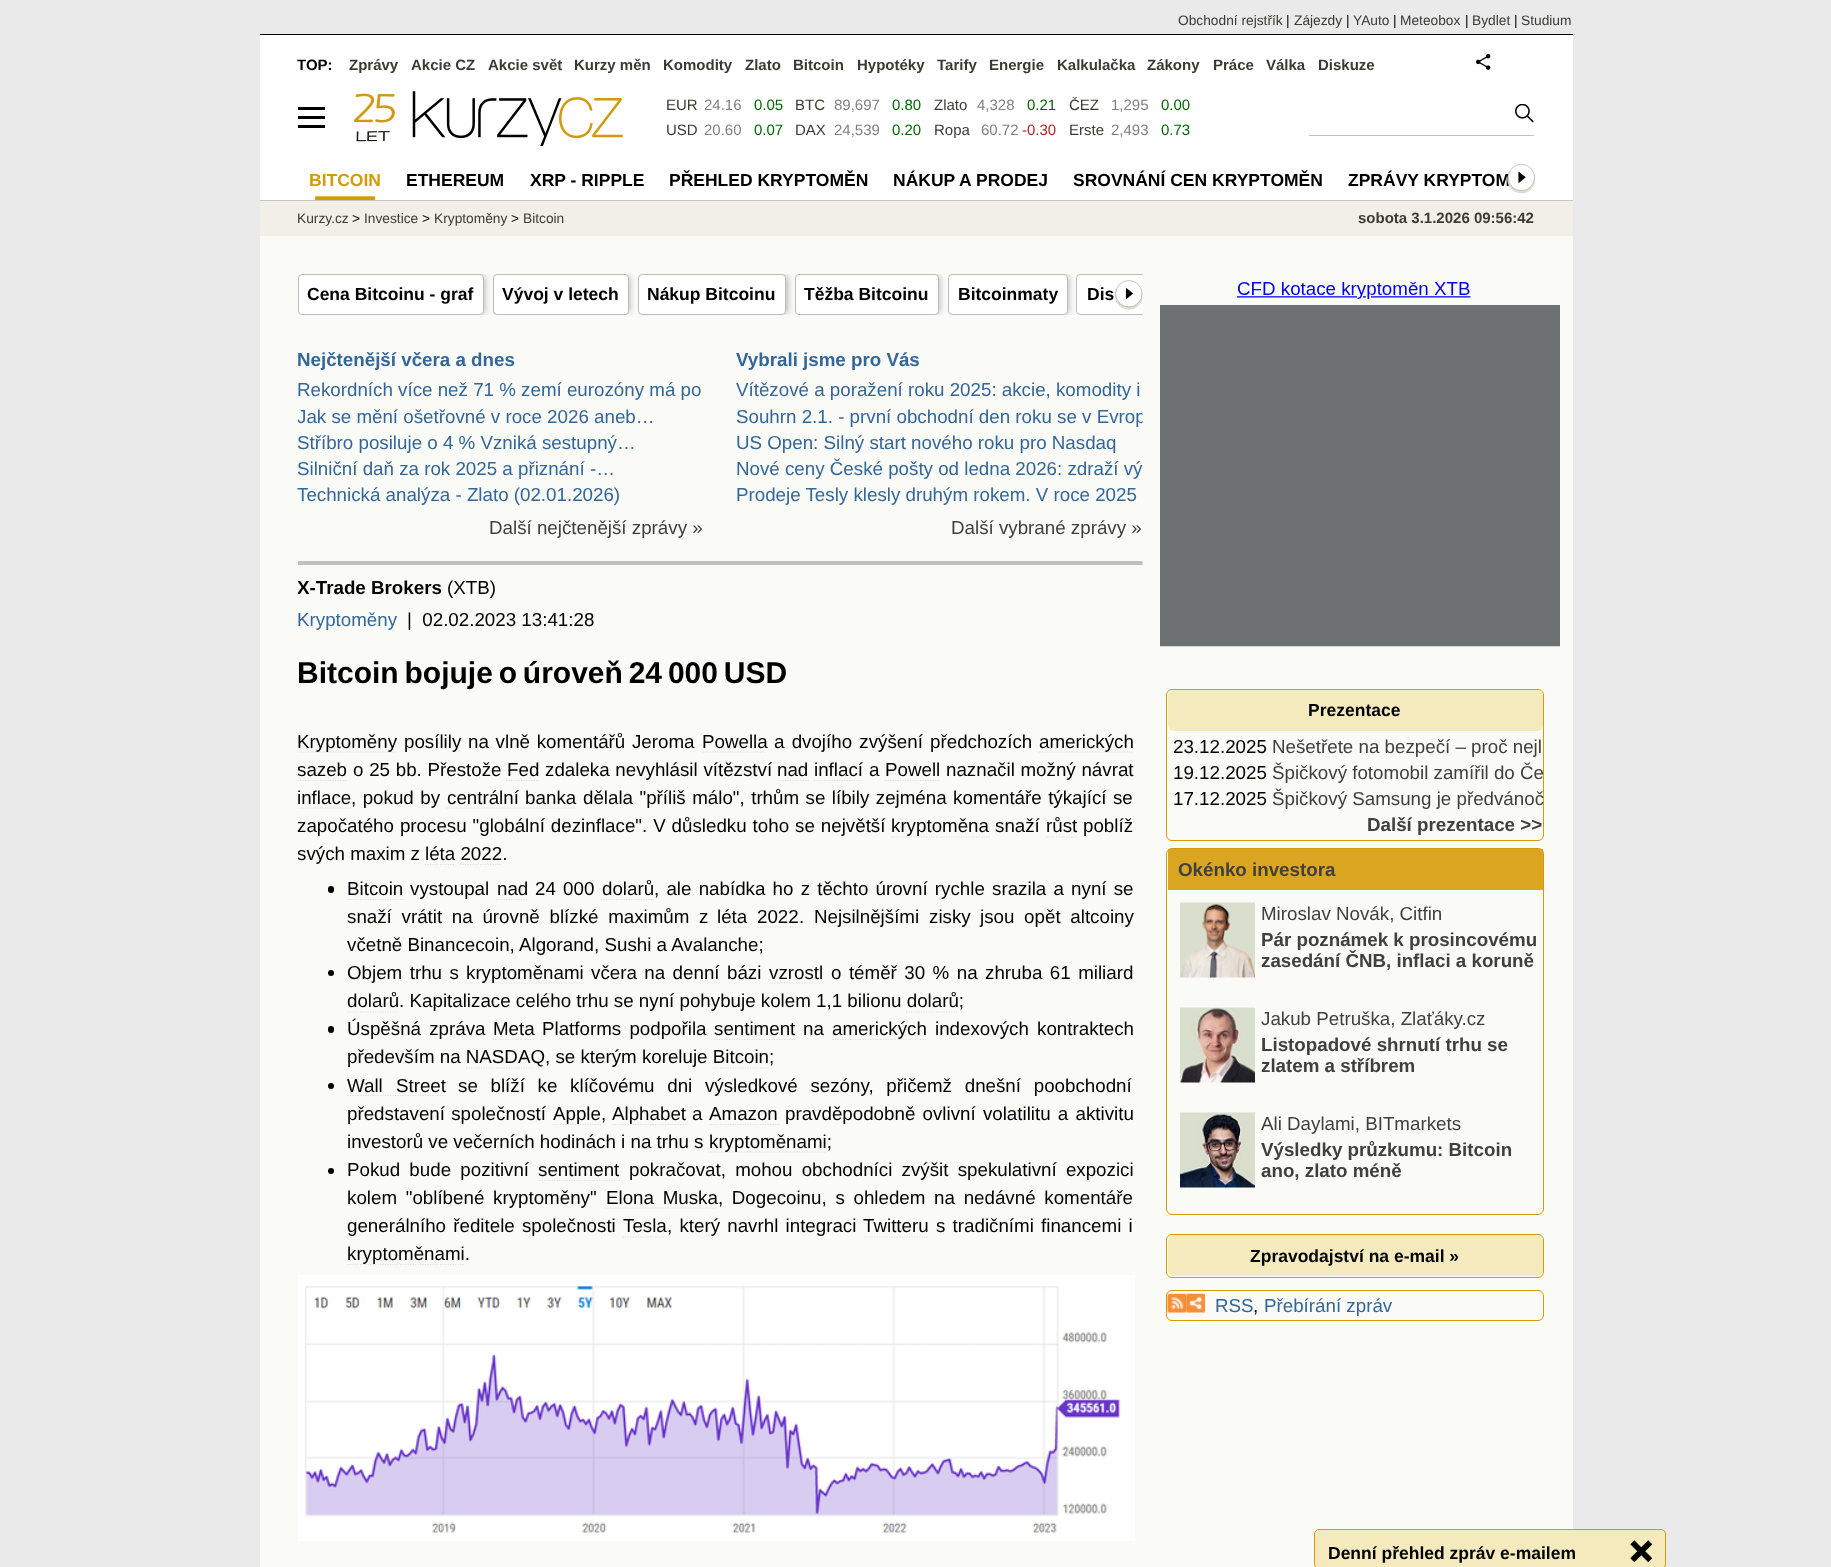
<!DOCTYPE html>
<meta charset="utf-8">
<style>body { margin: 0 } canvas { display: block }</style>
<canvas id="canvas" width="1831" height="1567"></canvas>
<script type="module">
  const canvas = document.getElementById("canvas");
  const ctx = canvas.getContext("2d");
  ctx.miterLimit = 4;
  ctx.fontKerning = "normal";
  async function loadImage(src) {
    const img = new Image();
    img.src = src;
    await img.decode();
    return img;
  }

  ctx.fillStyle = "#eaeaea";
  ctx.fillRect(0, 0, 1831, 1567);
  ctx.fillStyle = "#fafbf7";
  ctx.fillRect(260, 236, 1313, 1331);
  ctx.fillStyle = "#000000";
  ctx.fillRect(260, 34, 1313, 1);
  ctx.font = "13.75px Liberation Sans";
  ctx.fillStyle = "#393c31";
  ctx.fillText("Obchodní rejstřík", 1178, 25);
  ctx.fillStyle = "#000000";
  ctx.fillText("|", 1286, 25);
  ctx.fillStyle = "#393c31";
  ctx.fillText("Zájezdy", 1294, 25);
  ctx.fillStyle = "#000000";
  ctx.fillText("|", 1346, 25);
  ctx.fillStyle = "#393c31";
  ctx.fillText("YAuto", 1353, 25);
  ctx.fillStyle = "#000000";
  ctx.fillText("|", 1393, 25);
  ctx.fillStyle = "#393c31";
  ctx.fillText("Meteobox", 1400, 25);
  ctx.fillStyle = "#000000";
  ctx.fillText("|", 1465, 25);
  ctx.fillStyle = "#393c31";
  ctx.fillText("Bydlet", 1472, 25);
  ctx.fillStyle = "#000000";
  ctx.fillText("|", 1514, 25);
  ctx.fillStyle = "#393c31";
  ctx.fillText("Studium", 1521, 25);
  ctx.fillStyle = "#ffffff";
  ctx.fillRect(260, 35, 1313, 165);
  ctx.font = "bold 15px Liberation Sans";
  ctx.fillStyle = "#000000";
  ctx.fillText("TOP:", 297, 70);
  ctx.fillStyle = "#393c31";
  ctx.fillText("Zprávy", 349, 70);
  ctx.fillText("Akcie CZ", 411, 70);
  ctx.fillText("Akcie svět", 488, 70);
  ctx.fillText("Kurzy měn", 574, 70);
  ctx.fillText("Komodity", 663, 70);
  ctx.fillText("Zlato", 745, 70);
  ctx.fillText("Bitcoin", 793, 70);
  ctx.fillText("Hypotéky", 857, 70);
  ctx.fillText("Tarify", 937, 70);
  ctx.fillText("Energie", 989, 70);
  ctx.fillText("Kalkulačka", 1057, 70);
  ctx.fillText("Zákony", 1147, 70);
  ctx.fillText("Práce", 1213, 70);
  ctx.fillText("Válka", 1266, 70);
  ctx.fillText("Diskuze", 1318, 70);
  ctx.drawImage(await loadImage("img1.png"), 1476, 54, 15, 16);
  ctx.fillStyle = "#000000";
  ctx.fillRect(298, 107, 27, 3);
  ctx.drawImage(await loadImage("img2.png"), 354, 91, 269, 55);
  ctx.font = "15px Liberation Sans";
  ctx.fillStyle = "#393c31";
  ctx.fillText("EUR", 666, 110);
  ctx.fillStyle = "#808080";
  ctx.fillText("24.16", 704, 110);
  ctx.fillStyle = "#006600";
  ctx.fillText("0.05", 754, 110);
  ctx.fillStyle = "#393c31";
  ctx.fillText("BTC", 795, 110);
  ctx.fillStyle = "#808080";
  ctx.fillText("89,697", 834, 110);
  ctx.fillStyle = "#006600";
  ctx.fillText("0.80", 892, 110);
  ctx.fillStyle = "#393c31";
  ctx.fillText("Zlato", 934, 110);
  ctx.fillStyle = "#808080";
  ctx.fillText("4,328", 977, 110);
  ctx.fillStyle = "#006600";
  ctx.fillText("0.21", 1027, 110);
  ctx.fillStyle = "#393c31";
  ctx.fillText("ČEZ", 1069, 110);
  ctx.fillStyle = "#808080";
  ctx.fillText("1,295", 1111, 110);
  ctx.fillStyle = "#006600";
  ctx.fillText("0.00", 1161, 110);
  ctx.fillStyle = "#393c31";
  ctx.fillText("USD", 666, 135);
  ctx.fillStyle = "#808080";
  ctx.fillText("20.60", 704, 135);
  ctx.fillStyle = "#006600";
  ctx.fillText("0.07", 754, 135);
  ctx.fillStyle = "#393c31";
  ctx.fillText("DAX", 795, 135);
  ctx.fillStyle = "#808080";
  ctx.fillText("24,539", 834, 135);
  ctx.fillStyle = "#006600";
  ctx.fillText("0.20", 892, 135);
  ctx.fillStyle = "#393c31";
  ctx.fillText("Ropa", 934, 135);
  ctx.fillStyle = "#808080";
  ctx.fillText("60.72", 981, 135);
  ctx.fillStyle = "#b22222";
  ctx.fillText("-0.30", 1022, 135);
  ctx.fillStyle = "#393c31";
  ctx.fillText("Erste", 1069, 135);
  ctx.fillStyle = "#808080";
  ctx.fillText("2,493", 1111, 135);
  ctx.fillStyle = "#006600";
  ctx.fillText("0.73", 1161, 135);
  ctx.fillStyle = "#c0c0c0";
  ctx.fillRect(1309, 135, 225, 1);
  ctx.drawImage(await loadImage("img3.png"), 1515, 104, 19, 19);
  ctx.fillStyle = "#000000";
  ctx.fillRect(298, 116, 27, 3);
  ctx.fillRect(298, 125, 27, 3);
  ctx.fillStyle = "#f2efe6";
  ctx.fillRect(260, 201, 1313, 35);
  ctx.font = "13.75px Liberation Sans";
  ctx.fillStyle = "#393c31";
  ctx.fillText("Kurzy.cz", 297, 223);
  ctx.fillStyle = "#000000";
  ctx.fillText(">", 352, 223);
  ctx.fillStyle = "#393c31";
  ctx.fillText("Investice", 364, 223);
  ctx.fillStyle = "#000000";
  ctx.fillText(">", 422, 223);
  ctx.fillStyle = "#393c31";
  ctx.fillText("Kryptoměny", 434, 223);
  ctx.fillStyle = "#000000";
  ctx.fillText(">", 511, 223);
  ctx.fillStyle = "#393c31";
  ctx.fillText("Bitcoin", 523, 223);
  ctx.font = "bold 15px Liberation Sans";
  ctx.fillText("sobota 3.1.2026 09:56:42", 1358, 223);
  ctx.save();
  ctx.beginPath();
  ctx.rect(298, 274, 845, 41);
  ctx.clip();
  ctx.fillStyle = "#bbbbbb";
  ctx.filter = "blur(3px)";
  ctx.beginPath();
  ctx.roundRect(304, 276, 181, 37, 1);
  ctx.fill();
  ctx.filter = "none";
  ctx.restore();
  ctx.fillStyle = "#ffffff";
  ctx.beginPath();
  ctx.roundRect(298.5, 274.5, 185, 40, 3.5);
  ctx.fill();
  ctx.strokeStyle = "#bbbbbb";
  ctx.stroke();
  ctx.font = "bold 17.5px Liberation Sans";
  ctx.fillStyle = "#000000";
  ctx.fillText("Cena Bitcoinu - graf", 307, 300);
  ctx.save();
  ctx.beginPath();
  ctx.rect(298, 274, 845, 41);
  ctx.clip();
  ctx.fillStyle = "#bbbbbb";
  ctx.filter = "blur(3px)";
  ctx.beginPath();
  ctx.roundRect(499, 276, 131, 37, 1);
  ctx.fill();
  ctx.filter = "none";
  ctx.restore();
  ctx.fillStyle = "#ffffff";
  ctx.beginPath();
  ctx.roundRect(493.5, 274.5, 135, 40, 3.5);
  ctx.fill();
  ctx.stroke();
  ctx.fillStyle = "#000000";
  ctx.fillText("Vývoj v letech", 502, 300);
  ctx.save();
  ctx.beginPath();
  ctx.rect(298, 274, 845, 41);
  ctx.clip();
  ctx.fillStyle = "#bbbbbb";
  ctx.filter = "blur(3px)";
  ctx.beginPath();
  ctx.roundRect(644, 276, 144, 37, 1);
  ctx.fill();
  ctx.filter = "none";
  ctx.restore();
  ctx.fillStyle = "#ffffff";
  ctx.beginPath();
  ctx.roundRect(638.5, 274.5, 147, 40, 3.5);
  ctx.fill();
  ctx.stroke();
  ctx.fillStyle = "#000000";
  ctx.fillText("Nákup Bitcoinu", 647, 300);
  ctx.save();
  ctx.beginPath();
  ctx.rect(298, 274, 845, 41);
  ctx.clip();
  ctx.fillStyle = "#bbbbbb";
  ctx.filter = "blur(3px)";
  ctx.beginPath();
  ctx.roundRect(801, 276, 139, 37, 1);
  ctx.fill();
  ctx.filter = "none";
  ctx.restore();
  ctx.fillStyle = "#ffffff";
  ctx.beginPath();
  ctx.roundRect(795.5, 274.5, 143, 40, 3.5);
  ctx.fill();
  ctx.stroke();
  ctx.fillStyle = "#000000";
  ctx.fillText("Těžba Bitcoinu", 804, 300);
  ctx.save();
  ctx.beginPath();
  ctx.rect(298, 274, 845, 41);
  ctx.clip();
  ctx.fillStyle = "#bbbbbb";
  ctx.filter = "blur(3px)";
  ctx.beginPath();
  ctx.roundRect(954, 276, 115, 37, 1);
  ctx.fill();
  ctx.filter = "none";
  ctx.restore();
  ctx.fillStyle = "#ffffff";
  ctx.beginPath();
  ctx.roundRect(948.5, 274.5, 119, 40, 3.5);
  ctx.fill();
  ctx.stroke();
  ctx.fillStyle = "#000000";
  ctx.fillText("Bitcoinmaty", 958, 300);
  ctx.fillStyle = "#ffffff";
  ctx.beginPath();
  ctx.roundRect(1076, 274, 67, 41, [4, 0, 0, 4]);
  ctx.fill();
  ctx.drawImage(await loadImage("img6.png"), 1160, 282, 400, 365);
  ctx.save();
  ctx.beginPath();
  ctx.rect(298, 274, 845, 41);
  ctx.clip();
  ctx.beginPath();
  ctx.roundRect(1076.5, 274.5, 151, 40, 3.5);
  ctx.stroke();
  ctx.restore();
  ctx.fillStyle = "#000000";
  ctx.fillText("Dis", 1087, 300);
  ctx.drawImage(await loadImage("img4.png"), 1114, 280, 29, 30);
  ctx.font = "bold 18.75px Liberation Sans";
  ctx.fillStyle = "#336699";
  ctx.fillText("Nejčtenější včera a dnes", 297, 366);
  ctx.font = "18.75px Liberation Sans";
  ctx.fillText("Rekordních více než 71 % zemí eurozóny má po", 297, 396);
  ctx.save();
  ctx.beginPath();
  ctx.rect(298, 346, 405, 194);
  ctx.clip();
  ctx.fillText("Jak se mění ošetřovné v roce 2026 aneb…", 297, 423);
  ctx.restore();
  ctx.fillText("Stříbro posiluje o 4 % Vzniká sestupný…", 297, 449);
  ctx.fillText("Silniční daň za rok 2025 a přiznání -…", 297, 475);
  ctx.fillText("Technická analýza - Zlato (02.01.2026)", 297, 501);
  ctx.fillStyle = "#40413b";
  ctx.fillText("Další nejčtenější zprávy »", 489, 534);
  ctx.font = "bold 18.75px Liberation Sans";
  ctx.fillStyle = "#336699";
  ctx.fillText("Vybrali jsme pro Vás", 736, 366);
  ctx.font = "18.75px Liberation Sans";
  ctx.fillText("Vítězové a poražení roku 2025: akcie, komodity i", 736, 396);
  ctx.save();
  ctx.beginPath();
  ctx.rect(736, 346, 407, 194);
  ctx.clip();
  ctx.fillText("Souhrn 2.1. - první obchodní den roku se v Evrop", 736, 423);
  ctx.restore();
  ctx.fillText("US Open: Silný start nového roku pro Nasdaq", 736, 449);
  ctx.fillText("Nové ceny České pošty od ledna 2026: zdraží vý", 736, 475);
  ctx.fillText("Prodeje Tesly klesly druhým rokem. V roce 2025", 736, 501);
  ctx.fillStyle = "#40413b";
  ctx.fillText("Další vybrané zprávy »", 951, 534);
  ctx.fillStyle = "#c0c0c0";
  ctx.fillRect(298, 561, 845, 4);
  ctx.save();
  ctx.beginPath();
  ctx.rect(298, 269, 845, 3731);
  ctx.clip();
  ctx.font = "bold 18.75px Liberation Sans";
  ctx.fillStyle = "#000000";
  ctx.fillText("X-Trade Brokers", 297, 594);
  ctx.restore();
  ctx.fillStyle = "#000000";
  ctx.fillText("(XTB)", 447, 594);
  ctx.fillStyle = "#336699";
  ctx.fillText("Kryptoměny", 297, 626);
  ctx.fillStyle = "#000000";
  ctx.fillText("|  02.02.2023 13:41:28", 407, 626);
  ctx.wordSpacing = "-2.5px";
  ctx.font = "bold 30px Liberation Sans";
  ctx.fillText("Bitcoin bojuje o úroveň 24 000 USD", 297, 683);
  ctx.beginPath();
  ctx.moveTo(297.5, 752);
  ctx.lineTo(397.5, 752);
  ctx.strokeStyle = "#dddddd";
  ctx.lineWidth = 1.2;
  ctx.setLineDash([1.25, 1.25]);
  ctx.stroke();
  ctx.wordSpacing = "0px";
  ctx.font = "18.75px Liberation Sans";
  ctx.fillText("Kryptoměny", 297, 748);
  ctx.wordSpacing = "1.5px";
  ctx.fillText("posílily na vlně komentářů Jeroma", 404, 748);
  ctx.wordSpacing = "0px";
  ctx.fillText("Powella", 702, 748);
  ctx.beginPath();
  ctx.moveTo(702.5, 752);
  ctx.lineTo(767.5, 752);
  ctx.stroke();
  ctx.wordSpacing = "2px";
  ctx.fillText("a dvojího zvýšení předchozích", 774, 748);
  ctx.beginPath();
  ctx.moveTo(1039, 752);
  ctx.lineTo(1134, 752);
  ctx.stroke();
  ctx.wordSpacing = "0px";
  ctx.fillText("amerických", 1039, 748);
  ctx.save();
  ctx.beginPath();
  ctx.rect(298, 269, 845, 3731);
  ctx.clip();
  ctx.fillText("sazeb", 297, 776);
  ctx.restore();
  ctx.beginPath();
  ctx.moveTo(297.5, 780.5);
  ctx.lineTo(347.5, 780.5);
  ctx.stroke();
  ctx.wordSpacing = "0.5px";
  ctx.fillText("o 25 bb. Přestože", 353, 776);
  ctx.wordSpacing = "0px";
  ctx.fillText("Fed", 507, 776);
  ctx.beginPath();
  ctx.moveTo(506, 780.5);
  ctx.lineTo(539, 780.5);
  ctx.stroke();
  ctx.wordSpacing = "0.5px";
  ctx.fillText("zdaleka nevyhlásil vítězství", 545, 776);
  ctx.wordSpacing = "0px";
  ctx.fillText("nad", 777, 776);
  ctx.beginPath();
  ctx.moveTo(777.5, 780.5);
  ctx.lineTo(809, 780.5);
  ctx.stroke();
  ctx.fillText("inflací", 814, 776);
  ctx.beginPath();
  ctx.moveTo(814, 780.5);
  ctx.lineTo(864, 780.5);
  ctx.stroke();
  ctx.fillText("a", 869, 776);
  ctx.fillText("Powell", 885, 776);
  ctx.beginPath();
  ctx.moveTo(885, 780.5);
  ctx.lineTo(940, 780.5);
  ctx.stroke();
  ctx.wordSpacing = "0.5px";
  ctx.fillText("naznačil možný návrat", 946, 776);
  ctx.wordSpacing = "0px";
  ctx.fillText("inflace", 297, 804);
  ctx.beginPath();
  ctx.moveTo(297.5, 808);
  ctx.lineTo(351, 808);
  ctx.stroke();
  ctx.wordSpacing = "1.25px";
  ctx.fillText(", pokud by", 351, 804);
  ctx.wordSpacing = "1px";
  ctx.fillText("centrální banka", 447, 804);
  ctx.beginPath();
  ctx.moveTo(446, 808);
  ctx.lineTo(576, 808);
  ctx.stroke();
  ctx.wordSpacing = "1.25px";
  ctx.fillText("dělala \"příliš málo\", trhům se líbily zejména komentáře týkající se", 583, 804);
  ctx.wordSpacing = "0.75px";
  ctx.fillText("započatého procesu \"globální dezinflace\". V důsledku toho se největší", 297, 832);
  ctx.wordSpacing = "0px";
  ctx.fillText("kryptoměna", 891, 832);
  ctx.beginPath();
  ctx.moveTo(891, 837);
  ctx.lineTo(990, 837);
  ctx.stroke();
  ctx.fillText("snaží", 995, 832);
  ctx.fillText("růst", 1046, 832);
  ctx.beginPath();
  ctx.moveTo(1046, 837);
  ctx.lineTo(1077.5, 837);
  ctx.stroke();
  ctx.fillText("poblíž", 1083, 832);
  ctx.save();
  ctx.beginPath();
  ctx.rect(298, 269, 845, 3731);
  ctx.clip();
  ctx.fillText("svých maxim z", 297, 860);
  ctx.restore();
  ctx.fillText("léta 2022.", 425, 860);
  ctx.beginPath();
  ctx.moveTo(425, 864.5);
  ctx.lineTo(455, 864.5);
  ctx.stroke();
  ctx.beginPath();
  ctx.moveTo(460, 864.5);
  ctx.lineTo(502.5, 864.5);
  ctx.stroke();
  ctx.beginPath();
  ctx.roundRect(328, 886, 6, 7, 3);
  ctx.fill();
  ctx.fillText("Bitcoin", 347, 895);
  ctx.beginPath();
  ctx.moveTo(347.5, 899.5);
  ctx.lineTo(404, 899.5);
  ctx.stroke();
  ctx.fillText("vystoupal", 410, 895);
  ctx.fillText("nad", 497, 895);
  ctx.beginPath();
  ctx.moveTo(496, 899.5);
  ctx.lineTo(527.5, 899.5);
  ctx.stroke();
  ctx.wordSpacing = "2px";
  ctx.fillText("24 000", 535, 895);
  ctx.wordSpacing = "0px";
  ctx.fillText("dolarů", 602, 895);
  ctx.beginPath();
  ctx.moveTo(601, 899.5);
  ctx.lineTo(654, 899.5);
  ctx.stroke();
  ctx.wordSpacing = "2px";
  ctx.fillText(", ale nabídka ho z těchto úrovní rychle srazila a nyní se", 654, 895);
  ctx.wordSpacing = "4.5px";
  ctx.fillText("snaží vrátit na úrovně blízké maximům z", 347, 923);
  ctx.wordSpacing = "0px";
  ctx.fillText("léta", 717, 923);
  ctx.beginPath();
  ctx.moveTo(717.5, 927);
  ctx.lineTo(747.5, 927);
  ctx.stroke();
  ctx.fillText("2022", 757, 923);
  ctx.beginPath();
  ctx.moveTo(757.5, 927);
  ctx.lineTo(799, 927);
  ctx.stroke();
  ctx.wordSpacing = "4.5px";
  ctx.fillText(". Nejsilnějšími", 799, 923);
  ctx.beginPath();
  ctx.moveTo(929, 927);
  ctx.lineTo(970, 927);
  ctx.stroke();
  ctx.wordSpacing = "0px";
  ctx.fillText("zisky", 929, 923);
  ctx.wordSpacing = "4.5px";
  ctx.fillText("jsou opět altcoiny", 980, 923);
  ctx.wordSpacing = "0px";
  ctx.fillText("včetně Binancecoin, Algorand, Sushi a Avalanche;", 347, 951);
  ctx.beginPath();
  ctx.arc(331, 973, 3, 0, Math.PI * 2);
  ctx.fill();
  ctx.wordSpacing = "2.25px";
  ctx.fillText("Objem trhu s", 347, 979);
  ctx.beginPath();
  ctx.moveTo(466, 983);
  ctx.lineTo(584, 983);
  ctx.stroke();
  ctx.wordSpacing = "0px";
  ctx.fillText("kryptoměnami", 466, 979);
  ctx.wordSpacing = "2.25px";
  ctx.fillText("včera na denní bázi", 591, 979);
  ctx.wordSpacing = "0px";
  ctx.fillText("vzrostl", 769, 979);
  ctx.beginPath();
  ctx.moveTo(769, 983);
  ctx.lineTo(824, 983);
  ctx.stroke();
  ctx.wordSpacing = "2.25px";
  ctx.fillText("o téměř 30 % na zhruba 61 miliard", 831, 979);
  ctx.wordSpacing = "0px";
  ctx.fillText("dolarů. Kapitalizace celého trhu se nyní pohybuje kolem 1,1 bilionu dolarů;", 347, 1007);
  ctx.beginPath();
  ctx.moveTo(347.5, 1012);
  ctx.lineTo(399, 1012);
  ctx.stroke();
  ctx.beginPath();
  ctx.moveTo(906, 1012);
  ctx.lineTo(959, 1012);
  ctx.stroke();
  ctx.beginPath();
  ctx.roundRect(328, 1026, 6, 7, 3);
  ctx.fill();
  ctx.wordSpacing = "3px";
  ctx.fillText("Úspěšná zpráva", 347, 1035);
  ctx.wordSpacing = "0px";
  ctx.fillText("Meta", 493, 1035);
  ctx.beginPath();
  ctx.moveTo(492.5, 1039.5);
  ctx.lineTo(535, 1039.5);
  ctx.stroke();
  ctx.wordSpacing = "3px";
  ctx.fillText("Platforms podpořila", 542, 1035);
  ctx.wordSpacing = "0px";
  ctx.fillText("sentiment", 714, 1035);
  ctx.beginPath();
  ctx.moveTo(714, 1039.5);
  ctx.lineTo(796, 1039.5);
  ctx.stroke();
  ctx.fillText("na", 803, 1035);
  ctx.beginPath();
  ctx.moveTo(832.5, 1039.5);
  ctx.lineTo(927.5, 1039.5);
  ctx.stroke();
  ctx.fillText("amerických", 832, 1035);
  ctx.wordSpacing = "3px";
  ctx.fillText("indexových kontraktech", 935, 1035);
  ctx.wordSpacing = "0px";
  ctx.fillText("především na NASDAQ, se kterým koreluje Bitcoin;", 347, 1063);
  ctx.beginPath();
  ctx.moveTo(466, 1068);
  ctx.lineTo(545, 1068);
  ctx.stroke();
  ctx.beginPath();
  ctx.moveTo(712.5, 1068);
  ctx.lineTo(769, 1068);
  ctx.stroke();
  ctx.beginPath();
  ctx.arc(331, 1086, 3, 0, Math.PI * 2);
  ctx.fill();
  ctx.wordSpacing = "8px";
  ctx.fillText("Wall Street", 347, 1092);
  ctx.beginPath();
  ctx.moveTo(347.5, 1095.5);
  ctx.lineTo(445, 1095.5);
  ctx.stroke();
  ctx.wordSpacing = "7.5px";
  ctx.fillText("se blíží ke klíčovému dni výsledkové sezóny, přičemž dnešní poobchodní", 458, 1092);
  ctx.wordSpacing = "1px";
  ctx.fillText("představení společností", 347, 1120);
  ctx.beginPath();
  ctx.moveTo(552.5, 1124.5);
  ctx.lineTo(601, 1124.5);
  ctx.stroke();
  ctx.wordSpacing = "0px";
  ctx.fillText("Apple,", 553, 1120);
  ctx.beginPath();
  ctx.moveTo(612.5, 1124.5);
  ctx.lineTo(686, 1124.5);
  ctx.stroke();
  ctx.fillText("Alphabet", 612, 1120);
  ctx.fillText("a", 692, 1120);
  ctx.fillText("Amazon", 709, 1120);
  ctx.beginPath();
  ctx.moveTo(710, 1124.5);
  ctx.lineTo(779, 1124.5);
  ctx.stroke();
  ctx.wordSpacing = "2px";
  ctx.fillText("pravděpodobně ovlivní volatilitu a aktivitu", 785, 1120);
  ctx.wordSpacing = "0px";
  ctx.fillText("investorů ve večerních hodinách i na trhu s", 347, 1148);
  ctx.beginPath();
  ctx.moveTo(709, 1152);
  ctx.lineTo(826, 1152);
  ctx.stroke();
  ctx.fillText("kryptoměnami;", 709, 1148);
  ctx.beginPath();
  ctx.arc(331, 1171, 3, 0, Math.PI * 2);
  ctx.fill();
  ctx.wordSpacing = "4px";
  ctx.fillText("Pokud bude pozitivní", 347, 1176);
  ctx.wordSpacing = "0px";
  ctx.fillText("sentiment", 538, 1176);
  ctx.beginPath();
  ctx.moveTo(539, 1180.5);
  ctx.lineTo(620, 1180.5);
  ctx.stroke();
  ctx.wordSpacing = "4px";
  ctx.fillText("pokračovat, mohou obchodníci zvýšit spekulativní expozici", 629, 1176);
  ctx.wordSpacing = "3.5px";
  ctx.fillText("kolem \"oblíbené kryptoměny\"", 347, 1204);
  ctx.beginPath();
  ctx.moveTo(605, 1208);
  ctx.lineTo(717.5, 1208);
  ctx.stroke();
  ctx.fillText("Elona Muska, Dogecoinu, s ohledem na nedávné komentáře", 606, 1204);
  ctx.wordSpacing = "2px";
  ctx.fillText("generálního ředitele společnosti", 347, 1232);
  ctx.wordSpacing = "0px";
  ctx.fillText("Tesla", 623, 1232);
  ctx.beginPath();
  ctx.moveTo(622.5, 1237);
  ctx.lineTo(666, 1237);
  ctx.stroke();
  ctx.wordSpacing = "2px";
  ctx.fillText(", který navrhl integraci", 667, 1232);
  ctx.wordSpacing = "0px";
  ctx.fillText("Twitteru", 863, 1232);
  ctx.beginPath();
  ctx.moveTo(864, 1237);
  ctx.lineTo(929, 1237);
  ctx.stroke();
  ctx.wordSpacing = "2px";
  ctx.fillText("s tradičními financemi i", 936, 1232);
  ctx.beginPath();
  ctx.moveTo(347.5, 1264.5);
  ctx.lineTo(465, 1264.5);
  ctx.stroke();
  ctx.wordSpacing = "0px";
  ctx.fillText("kryptoměnami.", 347, 1260);
  ctx.drawImage(await loadImage("img5.png"), 298, 1275, 837, 266);
  ctx.fillStyle = "rgba(249, 251, 247, 0.5)";
  ctx.fillRect(1142, 413, 1, 152);
  ctx.beginPath();
  ctx.roundRect(1166.5, 689.5, 377, 151, 5.5);
  ctx.strokeStyle = "#d49c01";
  ctx.lineWidth = 1;
  ctx.setLineDash([]);
  ctx.stroke();
  ctx.fillStyle = "#f4eabd";
  ctx.beginPath();
  ctx.roundRect(1168, 690, 375, 41, 6);
  ctx.fill();
  ctx.font = "bold 17.5px Liberation Sans";
  ctx.fillStyle = "#000000";
  ctx.fillText("Prezentace", 1308, 716);
  ctx.font = "18.75px Liberation Sans";
  ctx.fillText("23.12.2025", 1173, 753);
  ctx.fillStyle = "#40413b";
  ctx.fillText("Nešetřete na bezpečí – proč nejl", 1272, 753);
  ctx.fillStyle = "#000000";
  ctx.fillText("19.12.2025", 1173, 779);
  ctx.save();
  ctx.beginPath();
  ctx.rect(1168, 761, 375, 23);
  ctx.clip();
  ctx.fillStyle = "#40413b";
  ctx.fillText("Špičkový fotomobil zamířil do Če", 1272, 779);
  ctx.restore();
  ctx.fillText("17.12.2025", 1173, 805);
  ctx.save();
  ctx.beginPath();
  ctx.rect(1168, 788, 375, 22);
  ctx.clip();
  ctx.fillStyle = "#40413b";
  ctx.fillText("Špičkový Samsung je předvánoč", 1272, 805);
  ctx.restore();
  ctx.font = "bold 18.75px Liberation Sans";
  ctx.fillStyle = "#40413b";
  ctx.fillText("Další prezentace >>", 1367, 831);
  ctx.beginPath();
  ctx.roundRect(1166.5, 848.5, 377, 366, 5.5);
  ctx.stroke();
  ctx.fillStyle = "#daa520";
  ctx.fillRect(1168, 849, 375, 41);
  ctx.fillStyle = "#40413b";
  ctx.fillText("Okénko investora", 1178, 876);
  ctx.drawImage(await loadImage("img7.png"), 1180, 902, 75, 76);
  ctx.font = "18.75px Liberation Sans";
  ctx.fillText("Miroslav Novák, Citfin", 1261, 920);
  ctx.font = "bold 18.75px Liberation Sans";
  ctx.fillText("Pár poznámek k prosincovému", 1261, 946);
  ctx.fillText("zasedání ČNB, inflaci a koruně", 1261, 967);
  ctx.drawImage(await loadImage("img8.png"), 1180, 1007, 75, 76);
  ctx.font = "18.75px Liberation Sans";
  ctx.fillText("Jakub Petruška, Zlaťáky.cz", 1261, 1025);
  ctx.font = "bold 18.75px Liberation Sans";
  ctx.fillText("Listopadové shrnutí trhu se", 1261, 1051);
  ctx.fillText("zlatem a stříbrem", 1261, 1072);
  ctx.drawImage(await loadImage("img9.png"), 1180, 1112, 75, 76);
  ctx.font = "18.75px Liberation Sans";
  ctx.fillText("Ali Daylami, BITmarkets", 1261, 1130);
  ctx.font = "bold 18.75px Liberation Sans";
  ctx.fillText("Výsledky průzkumu: Bitcoin", 1261, 1156);
  ctx.fillText("ano, zlato méně", 1261, 1177);
  ctx.beginPath();
  ctx.roundRect(1166.5, 1234.5, 377, 43, 5.5);
  ctx.stroke();
  ctx.fillStyle = "#f4eabd";
  ctx.beginPath();
  ctx.roundRect(1168, 1235, 375, 41, 6);
  ctx.fill();
  ctx.font = "bold 17.5px Liberation Sans";
  ctx.fillStyle = "#000000";
  ctx.fillText("Zpravodajství na e-mail »", 1250, 1262);
  ctx.beginPath();
  ctx.roundRect(1166.5, 1290.5, 377, 30, 5.5);
  ctx.stroke();
  ctx.drawImage(await loadImage("img10.png"), 1167, 1293, 20, 20);
  ctx.font = "18.75px Liberation Sans";
  ctx.fillStyle = "#336699";
  ctx.fillText("RSS", 1215, 1312);
  ctx.fillStyle = "#000000";
  ctx.fillText(",", 1253, 1312);
  ctx.drawImage(await loadImage("img11.png"), 1186, 1293, 19, 20);
  ctx.fillStyle = "#336699";
  ctx.fillText("Přebírání zpráv", 1264, 1312);
  ctx.fillStyle = "#c5c6bd";
  ctx.fillRect(260, 200, 1313, 1);
  ctx.drawImage(await loadImage("img12.png"), 314, 196, 62, 4);
  ctx.font = "bold 17.5px Liberation Sans";
  ctx.fillStyle = "#d49c01";
  ctx.fillText("BITCOIN", 309, 186);
  ctx.fillStyle = "#000000";
  ctx.fillText("ETHEREUM", 406, 186);
  ctx.fillText("XRP - RIPPLE", 530, 186);
  ctx.fillText("PŘEHLED KRYPTOMĚN", 669, 186);
  ctx.fillText("NÁKUP A PRODEJ", 893, 186);
  ctx.fillText("SROVNÁNÍ CEN KRYPTOMĚN", 1073, 186);
  ctx.fillText("ZPRÁVY KRYPTOM", 1348, 186);
  ctx.drawImage(await loadImage("img13.png"), 1507, 164, 28, 30);
  ctx.fillStyle = "#f4eabd";
  ctx.beginPath();
  ctx.roundRect(1314.5, 1529.5, 351, 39, 4.5);
  ctx.fill();
  ctx.stroke();
  ctx.fillStyle = "#000000";
  ctx.fillText("Denní přehled zpráv e-mailem", 1328, 1559);
  ctx.drawImage(await loadImage("img14.png"), 1630, 1540, 23, 23);
</script>
